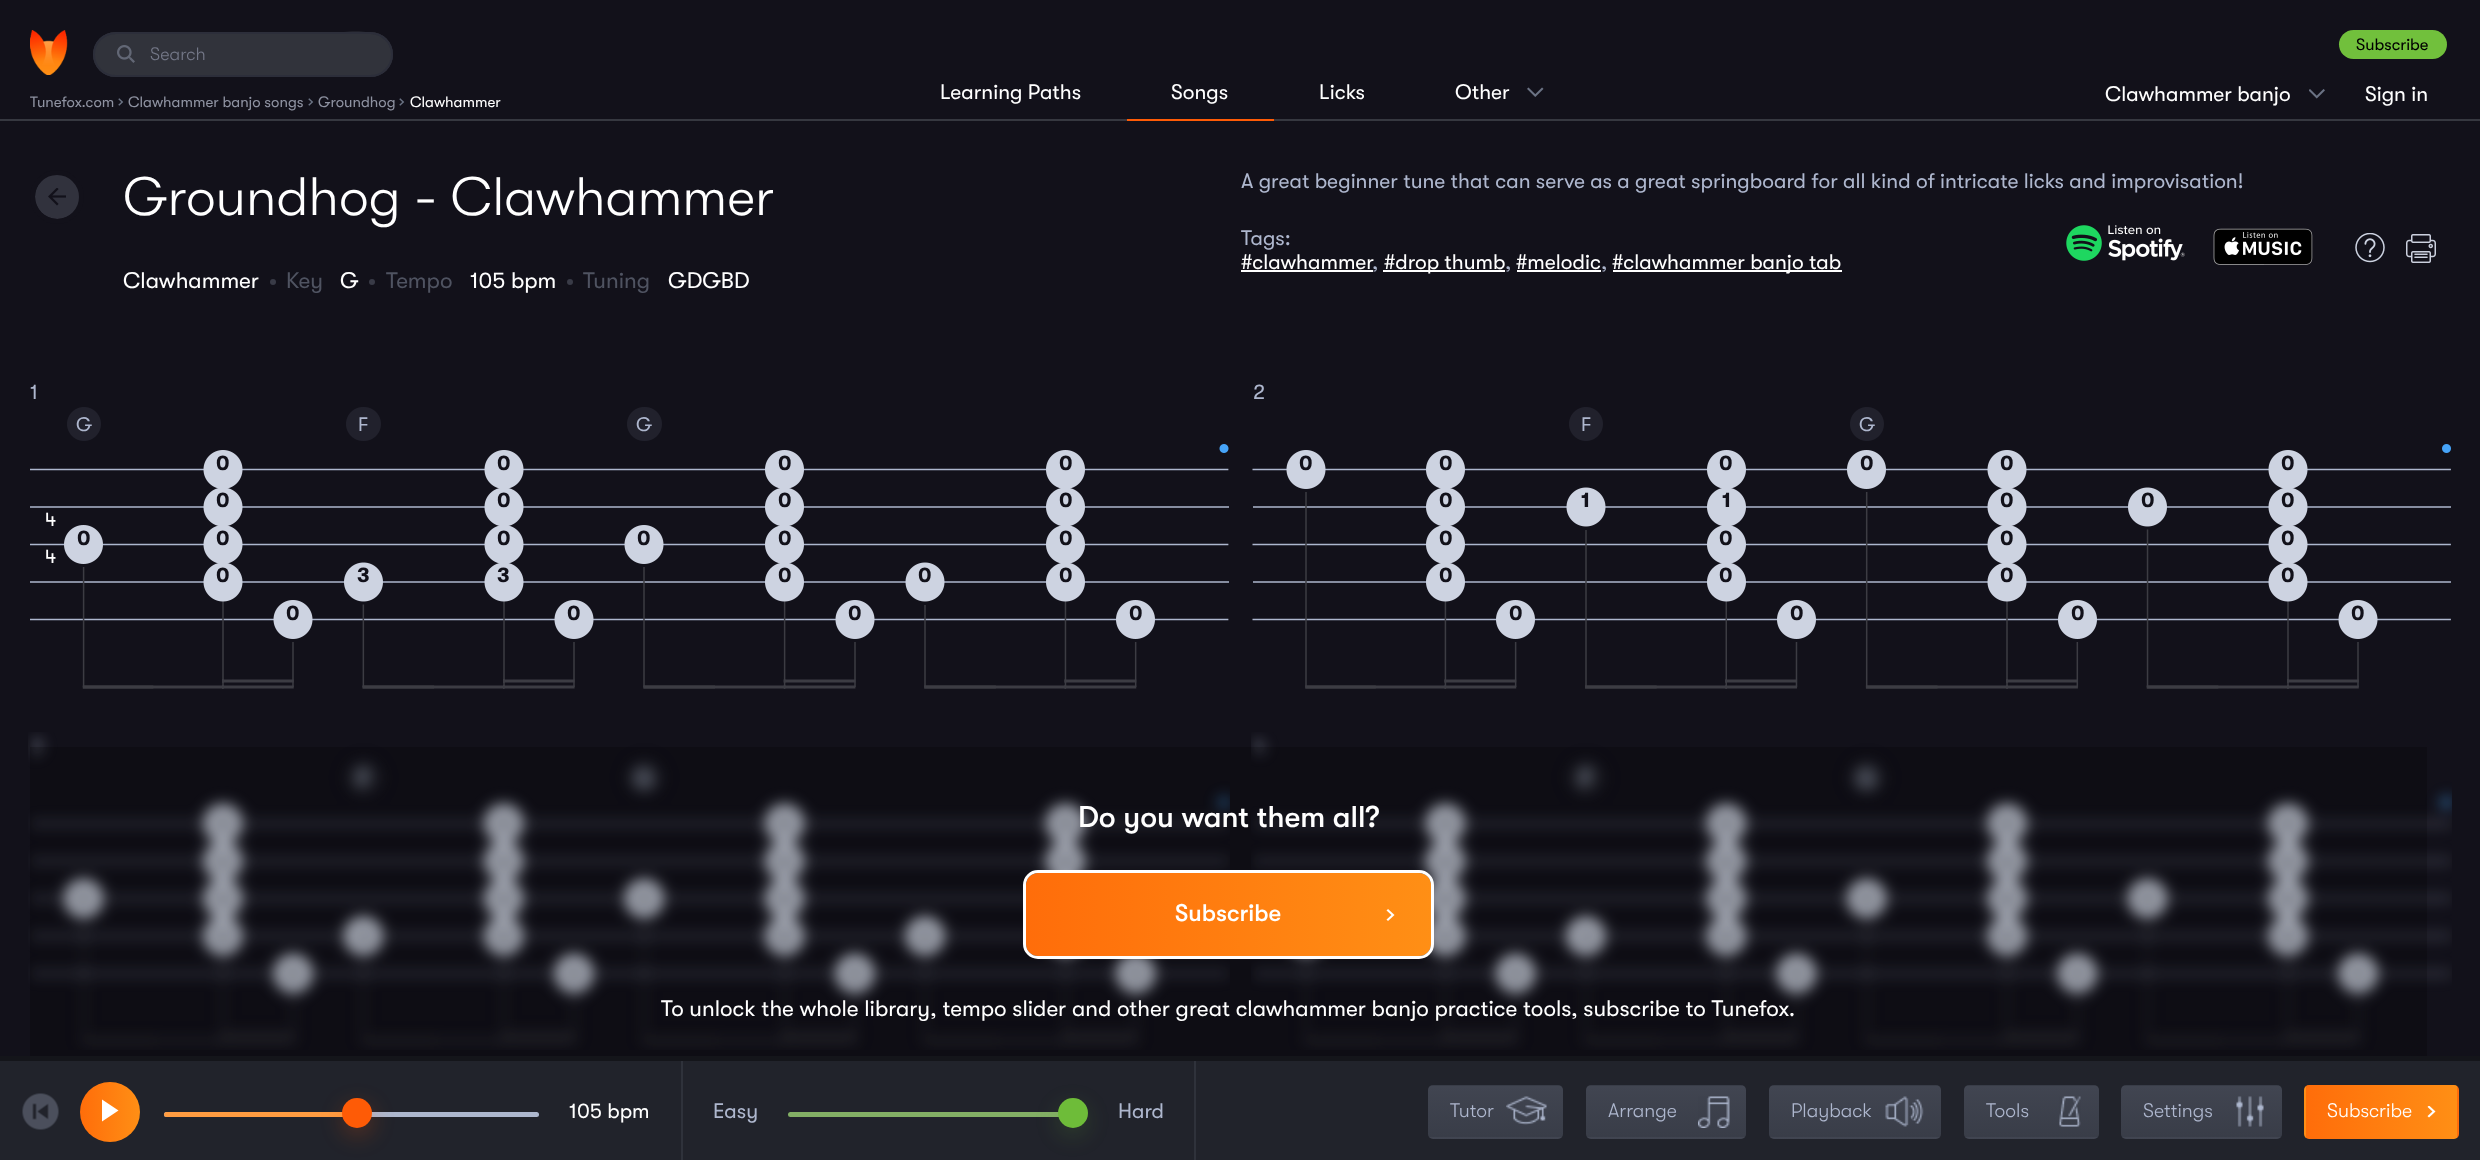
<!DOCTYPE html>
<meta charset="utf-8">
<style>body { margin: 0 } canvas { display: block }</style>
<canvas id="canvas" width="2480" height="1160"></canvas>
<script type="module">
  const canvas = document.getElementById("canvas");
  const ctx = canvas.getContext("2d");
  ctx.miterLimit = 4;
  ctx.fontKerning = "normal";
  async function loadImage(src) {
    const img = new Image();
    img.src = src;
    await img.decode();
    return img;
  }
  let gradient;

  ctx.fillStyle = "#12111a";
  ctx.fillRect(0, 0, 2480, 1160);
  ctx.fillStyle = "#363840";
  ctx.fillRect(0, 119, 2480, 2);
  ctx.drawImage(await loadImage("img1.png"), 30, 30, 38, 45);
  ctx.fillStyle = "#31333b";
  ctx.beginPath();
  ctx.roundRect(93, 32, 300, 45, 22.5);
  ctx.fill();
  ctx.fillStyle = "#2d2f37";
  ctx.beginPath();
  ctx.moveTo(116, 34);
  ctx.lineTo(370, 34);
  ctx.bezierCurveTo(382, 34, 391, 43, 392, 55);
  ctx.bezierCurveTo(393, 23, 343, 33, 328, 33);
  ctx.lineTo(116, 33);
  ctx.bezierCurveTo(108, 33, 101, 38, 97, 45);
  ctx.bezierCurveTo(101, 38, 108, 34, 116, 34);
  ctx.closePath();
  ctx.fill();
  ctx.beginPath();
  ctx.roundRect(94, 33, 298, 43, 21.5);
  ctx.strokeStyle = "#2c2e3a";
  ctx.lineWidth = 2;
  ctx.stroke();
  ctx.drawImage(await loadImage("img2.png"), 117, 45, 18, 18);
  ctx.font = "300 18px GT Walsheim";
  ctx.fillStyle = "#747888";
  ctx.fillText("Search", 150, 60);
  ctx.font = "15px GT Walsheim";
  ctx.fillStyle = "#8e92a1";
  ctx.fillText("Tunefox.com", 30, 107);
  ctx.font = "19.5px GT Walsheim";
  ctx.fillStyle = "#6b7384";
  ctx.fillText("›", 118, 107);
  ctx.font = "15px GT Walsheim";
  ctx.fillStyle = "#8e92a1";
  ctx.fillText("Clawhammer banjo songs", 128, 107);
  ctx.font = "19.5px GT Walsheim";
  ctx.fillStyle = "#6b7384";
  ctx.fillText("›", 308, 107);
  ctx.font = "15px GT Walsheim";
  ctx.fillStyle = "#8e92a1";
  ctx.fillText("Groundhog", 318, 107);
  ctx.font = "19.5px GT Walsheim";
  ctx.fillStyle = "#6b7384";
  ctx.fillText("›", 399, 107);
  ctx.font = "15px GT Walsheim";
  ctx.fillStyle = "#ffffff";
  ctx.fillText("Clawhammer", 410, 107);
  ctx.font = "21px GT Walsheim";
  ctx.fillText("Learning Paths", 940, 99);
  ctx.fillStyle = "#fe5b06";
  ctx.fillRect(1127, 119, 147, 2);
  ctx.fillStyle = "#ffffff";
  ctx.fillText("Songs", 1171, 99);
  ctx.fillText("Licks", 1319, 99);
  ctx.drawImage(await loadImage("img3.png"), 1527, 87, 17, 10);
  ctx.fillText("Other", 1455, 99);
  ctx.drawImage(await loadImage("img4.png"), 2309, 89, 16, 10);
  ctx.fillText("Clawhammer banjo", 2105, 101);
  ctx.fillStyle = "#71c03c";
  ctx.beginPath();
  ctx.roundRect(2339, 30, 108, 29, 14.5);
  ctx.fill();
  ctx.font = "16.5px GT Walsheim";
  ctx.fillStyle = "#000000";
  ctx.fillText("Subscribe", 2356, 50);
  ctx.font = "21px GT Walsheim";
  ctx.fillStyle = "#ffffff";
  ctx.fillText("Sign in", 2365, 101);
  ctx.fillStyle = "#31323d";
  ctx.beginPath();
  ctx.arc(57.5, 196.5, 22.5, 0, Math.PI * 2);
  ctx.fill();
  ctx.drawImage(await loadImage("img5.png"), 48, 188, 18, 18);
  ctx.beginPath();
  ctx.arc(57, 197, 24.5, 0, Math.PI * 2);
  ctx.strokeStyle = "#12111a";
  ctx.lineWidth = 5;
  ctx.stroke();
  ctx.font = "300 54px GT Walsheim";
  ctx.fillStyle = "#ffffff";
  ctx.fillText("Groundhog - Clawhammer", 123, 215);
  ctx.font = "22.5px GT Walsheim";
  ctx.fillText("Clawhammer", 123, 288);
  ctx.fillStyle = "#393b47";
  ctx.beginPath();
  ctx.arc(273, 282, 3, 0, Math.PI * 2);
  ctx.fill();
  ctx.fillStyle = "#4f5361";
  ctx.fillText("Key", 286, 288);
  ctx.fillStyle = "#ffffff";
  ctx.fillText("G", 340, 288);
  ctx.fillStyle = "#393b47";
  ctx.beginPath();
  ctx.arc(372, 282, 3, 0, Math.PI * 2);
  ctx.fill();
  ctx.fillStyle = "#4f5361";
  ctx.fillText("Tempo", 386, 288);
  ctx.fillStyle = "#ffffff";
  ctx.fillText("105 bpm", 470, 288);
  ctx.fillStyle = "#393b47";
  ctx.beginPath();
  ctx.arc(570, 282, 3, 0, Math.PI * 2);
  ctx.fill();
  ctx.fillStyle = "#4f5361";
  ctx.fillText("Tuning", 583, 288);
  ctx.fillStyle = "#ffffff";
  ctx.fillText("GDGBD", 668, 288);
  ctx.font = "21px GT Walsheim";
  ctx.fillStyle = "#aeb7ce";
  ctx.fillText("A great beginner tune that can serve as a great springboard for all kind of intricate licks and improvisation!", 1241, 188);
  ctx.fillText("Tags:", 1241, 245);
  ctx.fillStyle = "#ffffff";
  ctx.fillText("#clawhammer", 1241, 269);
  ctx.fillRect(1241, 270, 132, 2);
  ctx.fillStyle = "#aeb7ce";
  ctx.fillText(",", 1372, 269);
  ctx.fillStyle = "#ffffff";
  ctx.fillRect(1383, 270, 122, 2);
  ctx.fillText("#drop thumb", 1384, 269);
  ctx.fillStyle = "#aeb7ce";
  ctx.fillText(",", 1505, 269);
  ctx.fillStyle = "#ffffff";
  ctx.fillText("#melodic", 1516, 269);
  ctx.fillRect(1517, 270, 84, 2);
  ctx.fillStyle = "#aeb7ce";
  ctx.fillText(",", 1601, 269);
  ctx.fillStyle = "#ffffff";
  ctx.fillRect(1613, 270, 229, 2);
  ctx.fillText("#clawhammer banjo tab", 1612, 269);
  ctx.drawImage(await loadImage("img6.png"), 2066, 225, 119, 36);
  ctx.drawImage(await loadImage("img7.png"), 2213, 228, 100, 37);
  ctx.drawImage(await loadImage("img8.png"), 2355, 233, 30, 30);
  ctx.drawImage(await loadImage("img9.png"), 2406, 234, 30, 29);
  ctx.fillStyle = "#aeb7ce";
  ctx.fillText("1", 30, 399);
  ctx.drawImage(await loadImage("img10.png"), 30, 407, 1199, 282);
  ctx.font = "19.5px GT Walsheim";
  ctx.fillText("G", 76, 431);
  ctx.fillText("F", 358, 431);
  ctx.fillText("G", 636, 431);
  ctx.font = "bold 21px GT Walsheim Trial";
  ctx.fillStyle = "#12111a";
  ctx.fillText("0", 216, 470);
  ctx.fillText("0", 497, 470);
  ctx.fillText("0", 778, 470);
  ctx.fillText("0", 1059, 470);
  ctx.fillText("0", 216, 507);
  ctx.fillText("0", 497, 507);
  ctx.fillText("0", 778, 507);
  ctx.fillText("0", 1059, 507);
  ctx.font = "19.5px GT Walsheim";
  ctx.fillStyle = "#ffffff";
  ctx.fillText("4", 45, 526);
  ctx.font = "bold 21px GT Walsheim Trial";
  ctx.fillStyle = "#12111a";
  ctx.fillText("0", 77, 545);
  ctx.fillText("0", 216, 545);
  ctx.fillText("0", 497, 545);
  ctx.fillText("0", 637, 545);
  ctx.fillText("0", 778, 545);
  ctx.fillText("0", 1059, 545);
  ctx.font = "19.5px GT Walsheim";
  ctx.fillStyle = "#ffffff";
  ctx.fillText("4", 45, 563);
  ctx.font = "bold 21px GT Walsheim Trial";
  ctx.fillStyle = "#12111a";
  ctx.fillText("0", 216, 582);
  ctx.fillText("3", 357, 582);
  ctx.fillText("3", 497, 582);
  ctx.fillText("0", 778, 582);
  ctx.fillText("0", 918, 582);
  ctx.fillText("0", 1059, 582);
  ctx.fillText("0", 286, 620);
  ctx.fillText("0", 567, 620);
  ctx.fillText("0", 848, 620);
  ctx.fillText("0", 1129, 620);
  ctx.font = "21px GT Walsheim";
  ctx.fillStyle = "#aeb7ce";
  ctx.fillText("2", 1253, 399);
  ctx.drawImage(await loadImage("img11.png"), 1252, 407, 1199, 282);
  ctx.font = "19.5px GT Walsheim";
  ctx.fillText("F", 1581, 431);
  ctx.fillText("G", 1859, 431);
  ctx.font = "bold 21px GT Walsheim Trial";
  ctx.fillStyle = "#12111a";
  ctx.fillText("0", 1299, 470);
  ctx.fillText("0", 1439, 470);
  ctx.fillText("0", 1719, 470);
  ctx.fillText("0", 1860, 470);
  ctx.fillText("0", 2000, 470);
  ctx.fillText("0", 2281, 470);
  ctx.fillText("0", 1439, 507);
  ctx.fillText("1", 1581, 507);
  ctx.fillText("1", 1722, 507);
  ctx.fillText("0", 2000, 507);
  ctx.fillText("0", 2141, 507);
  ctx.fillText("0", 2281, 507);
  ctx.fillText("0", 1439, 545);
  ctx.fillText("0", 1719, 545);
  ctx.fillText("0", 2000, 545);
  ctx.fillText("0", 2281, 545);
  ctx.fillText("0", 1439, 582);
  ctx.fillText("0", 1719, 582);
  ctx.fillText("0", 2000, 582);
  ctx.fillText("0", 2281, 582);
  ctx.fillText("0", 1509, 620);
  ctx.fillText("0", 1790, 620);
  ctx.fillText("0", 2071, 620);
  ctx.fillText("0", 2351, 620);
  ctx.drawImage(await loadImage("img12.png"), 28, 732, 1202, 318);
  ctx.drawImage(await loadImage("img14.png"), 1251, 732, 1201, 318);
  ctx.fillStyle = "rgba(0, 0, 0, 0.2)";
  ctx.fillRect(30, 747, 2397, 309);
  ctx.font = "500 30px GT Walsheim";
  ctx.fillStyle = "#ffffff";
  ctx.fillText("Do you want them all?", 1078, 827);
  gradient = ctx.createLinearGradient(1026, 914, 1431, 914);
  gradient.addColorStop(0, "#ff6d0a");
  gradient.addColorStop(1, "#ff8f15");
  ctx.fillStyle = gradient;
  ctx.beginPath();
  ctx.roundRect(1026, 873, 405, 83, 12);
  ctx.fill();
  ctx.drawImage(await loadImage("img13.png"), 1386, 909, 9, 12);
  ctx.beginPath();
  ctx.roundRect(1024.5, 871.5, 408, 86, 13.5);
  ctx.strokeStyle = "#ffffff";
  ctx.lineWidth = 3;
  ctx.stroke();
  ctx.font = "500 24px GT Walsheim";
  ctx.fillStyle = "#ffffff";
  ctx.fillText("Subscribe", 1175, 921);
  ctx.font = "22.5px GT Walsheim";
  ctx.fillText("To unlock the whole library, tempo slider and other great clawhammer banjo practice tools, subscribe to Tunefox.", 661, 1016);
  ctx.fillStyle = "#21232b";
  ctx.fillRect(0, 1061, 2480, 99);
  ctx.fillStyle = "#14151a";
  ctx.fillRect(0, 1056, 2480, 5);
  ctx.drawImage(await loadImage("img15.png"), 22, 1093, 37, 37);
  gradient = ctx.createLinearGradient(80, 1112, 140, 1112);
  gradient.addColorStop(0, "#ff6d0a");
  gradient.addColorStop(1, "#ff8f15");
  ctx.fillStyle = gradient;
  ctx.beginPath();
  ctx.arc(110, 1112, 30, 0, Math.PI * 2);
  ctx.fill();
  ctx.fillStyle = "#ffffff";
  ctx.beginPath();
  ctx.moveTo(102, 1099.5);
  ctx.lineTo(118.5, 1110.5);
  ctx.lineTo(102, 1121.5);
  ctx.closePath();
  ctx.fill("evenodd");
  ctx.fillStyle = "#adb7ce";
  ctx.beginPath();
  ctx.roundRect(164, 1112, 375, 5, 2.5);
  ctx.fill();
  ctx.fillStyle = "#ff9c41";
  ctx.beginPath();
  ctx.roundRect(164, 1112, 193, 5, 2.5);
  ctx.fill();
  ctx.fillStyle = "rgba(254, 91, 6, 0.2)";
  ctx.filter = "blur(10.5px)";
  ctx.beginPath();
  ctx.roundRect(341, 1104, 33, 33, 16.5);
  ctx.fill();
  ctx.filter = "none";
  ctx.fillStyle = "#fe5b06";
  ctx.beginPath();
  ctx.arc(357, 1113, 15, 0, Math.PI * 2);
  ctx.fill();
  ctx.font = "21px GT Walsheim";
  ctx.fillStyle = "#ffffff";
  ctx.fillText("105 bpm", 569, 1118);
  ctx.fillStyle = "#2f323b";
  ctx.fillRect(681, 1061, 2, 99);
  ctx.fillStyle = "#aeb7ce";
  ctx.fillText("Easy", 713, 1118);
  ctx.fillStyle = "#83af65";
  ctx.beginPath();
  ctx.roundRect(788, 1112, 285, 5, 2.5);
  ctx.fill();
  ctx.fillStyle = "rgba(110, 188, 57, 0.15)";
  ctx.filter = "blur(10.5px)";
  ctx.beginPath();
  ctx.roundRect(1056, 1104, 33, 33, 16.5);
  ctx.fill();
  ctx.filter = "none";
  ctx.fillStyle = "#6ebc39";
  ctx.beginPath();
  ctx.arc(1073, 1113, 15, 0, Math.PI * 2);
  ctx.fill();
  ctx.fillStyle = "#aeb7ce";
  ctx.fillText("Hard", 1118, 1118);
  ctx.fillStyle = "#2f323b";
  ctx.fillRect(1194, 1061, 2, 99);
  ctx.save();
  ctx.beginPath();
  ctx.roundRect(1428, 1085, 135, 54, 5);
  ctx.clip();
  gradient = ctx.createLinearGradient(1496, 1086, 1496, 1035);
  gradient.addColorStop(0, "#393d48");
  gradient.addColorStop(1, "#414551");
  ctx.fillStyle = gradient;
  ctx.fillRect(1428, 1085, 135, 1);
  gradient = ctx.createLinearGradient(1496, 1137, 1496, 1086);
  gradient.addColorStop(0, "#393d48");
  gradient.addColorStop(1, "#414551");
  ctx.fillStyle = gradient;
  ctx.fillRect(1428, 1086, 135, 51);
  gradient = ctx.createLinearGradient(1496, 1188, 1496, 1137);
  gradient.addColorStop(0, "#393d48");
  gradient.addColorStop(1, "#414551");
  ctx.fillStyle = gradient;
  ctx.fillRect(1428, 1137, 135, 2);
  ctx.restore();
  ctx.font = "300 19.5px GT Walsheim";
  ctx.fillStyle = "#aeb7ce";
  ctx.fillText("Tutor", 1450, 1117);
  ctx.drawImage(await loadImage("img16.png"), 1506, 1096, 41, 29);
  ctx.save();
  ctx.beginPath();
  ctx.roundRect(1586, 1085, 160, 54, 5);
  ctx.clip();
  gradient = ctx.createLinearGradient(1666, 1086, 1666, 1035);
  gradient.addColorStop(0, "#393d48");
  gradient.addColorStop(1, "#414551");
  ctx.fillStyle = gradient;
  ctx.fillRect(1586, 1085, 160, 1);
  gradient = ctx.createLinearGradient(1666, 1137, 1666, 1086);
  gradient.addColorStop(0, "#393d48");
  gradient.addColorStop(1, "#414551");
  ctx.fillStyle = gradient;
  ctx.fillRect(1586, 1086, 160, 51);
  gradient = ctx.createLinearGradient(1666, 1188, 1666, 1137);
  gradient.addColorStop(0, "#393d48");
  gradient.addColorStop(1, "#414551");
  ctx.fillStyle = gradient;
  ctx.fillRect(1586, 1137, 160, 2);
  ctx.restore();
  ctx.fillText("Arrange", 1608, 1117);
  ctx.drawImage(await loadImage("img17.png"), 1698, 1096, 32, 32);
  ctx.save();
  ctx.beginPath();
  ctx.roundRect(1769, 1085, 172, 54, 5);
  ctx.clip();
  gradient = ctx.createLinearGradient(1855, 1086, 1855, 1035);
  gradient.addColorStop(0, "#393d48");
  gradient.addColorStop(1, "#414551");
  ctx.fillStyle = gradient;
  ctx.fillRect(1769, 1085, 172, 1);
  gradient = ctx.createLinearGradient(1855, 1137, 1855, 1086);
  gradient.addColorStop(0, "#393d48");
  gradient.addColorStop(1, "#414551");
  ctx.fillStyle = gradient;
  ctx.fillRect(1769, 1086, 172, 51);
  gradient = ctx.createLinearGradient(1855, 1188, 1855, 1137);
  gradient.addColorStop(0, "#393d48");
  gradient.addColorStop(1, "#414551");
  ctx.fillStyle = gradient;
  ctx.fillRect(1769, 1137, 172, 2);
  ctx.restore();
  ctx.fillText("Playback", 1791, 1117);
  ctx.drawImage(await loadImage("img18.png"), 1885, 1096, 39, 31);
  ctx.save();
  ctx.beginPath();
  ctx.roundRect(1964, 1085, 135, 54, 5);
  ctx.clip();
  gradient = ctx.createLinearGradient(2031, 1086, 2031, 1035);
  gradient.addColorStop(0, "#393d48");
  gradient.addColorStop(1, "#414551");
  ctx.fillStyle = gradient;
  ctx.fillRect(1964, 1085, 135, 1);
  gradient = ctx.createLinearGradient(2031, 1137, 2031, 1086);
  gradient.addColorStop(0, "#393d48");
  gradient.addColorStop(1, "#414551");
  ctx.fillStyle = gradient;
  ctx.fillRect(1964, 1086, 135, 51);
  gradient = ctx.createLinearGradient(2031, 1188, 2031, 1137);
  gradient.addColorStop(0, "#393d48");
  gradient.addColorStop(1, "#414551");
  ctx.fillStyle = gradient;
  ctx.fillRect(1964, 1137, 135, 2);
  ctx.restore();
  ctx.fillText("Tools", 1986, 1117);
  ctx.drawImage(await loadImage("img19.png"), 2059, 1096, 22, 31);
  ctx.save();
  ctx.beginPath();
  ctx.roundRect(2121, 1085, 161, 54, 5);
  ctx.clip();
  gradient = ctx.createLinearGradient(2201, 1086, 2201, 1035);
  gradient.addColorStop(0, "#393d48");
  gradient.addColorStop(1, "#414551");
  ctx.fillStyle = gradient;
  ctx.fillRect(2121, 1085, 161, 1);
  gradient = ctx.createLinearGradient(2201, 1137, 2201, 1086);
  gradient.addColorStop(0, "#393d48");
  gradient.addColorStop(1, "#414551");
  ctx.fillStyle = gradient;
  ctx.fillRect(2121, 1086, 161, 51);
  gradient = ctx.createLinearGradient(2201, 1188, 2201, 1137);
  gradient.addColorStop(0, "#393d48");
  gradient.addColorStop(1, "#414551");
  ctx.fillStyle = gradient;
  ctx.fillRect(2121, 1137, 161, 2);
  ctx.restore();
  ctx.fillText("Settings", 2143, 1117);
  ctx.drawImage(await loadImage("img20.png"), 2236, 1096, 28, 31);
  ctx.save();
  ctx.beginPath();
  ctx.roundRect(2304, 1085, 155, 54, 5);
  ctx.clip();
  gradient = ctx.createLinearGradient(2154, 1112, 2306, 1112);
  gradient.addColorStop(0, "#ff6d0a");
  gradient.addColorStop(1, "#ff8f15");
  ctx.fillStyle = gradient;
  ctx.fillRect(2304, 1085, 2, 54);
  gradient = ctx.createLinearGradient(2306, 1112, 2457, 1112);
  gradient.addColorStop(0, "#ff6d0a");
  gradient.addColorStop(1, "#ff8f15");
  ctx.fillStyle = gradient;
  ctx.fillRect(2306, 1085, 151, 54);
  gradient = ctx.createLinearGradient(2457, 1112, 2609, 1112);
  gradient.addColorStop(0, "#ff6d0a");
  gradient.addColorStop(1, "#ff8f15");
  ctx.fillStyle = gradient;
  ctx.fillRect(2457, 1085, 2, 54);
  ctx.restore();
  ctx.drawImage(await loadImage("img21.png"), 2427, 1106, 9, 12);
  ctx.fillStyle = "#ffffff";
  ctx.fillText("Subscribe", 2327, 1117);
</script>
